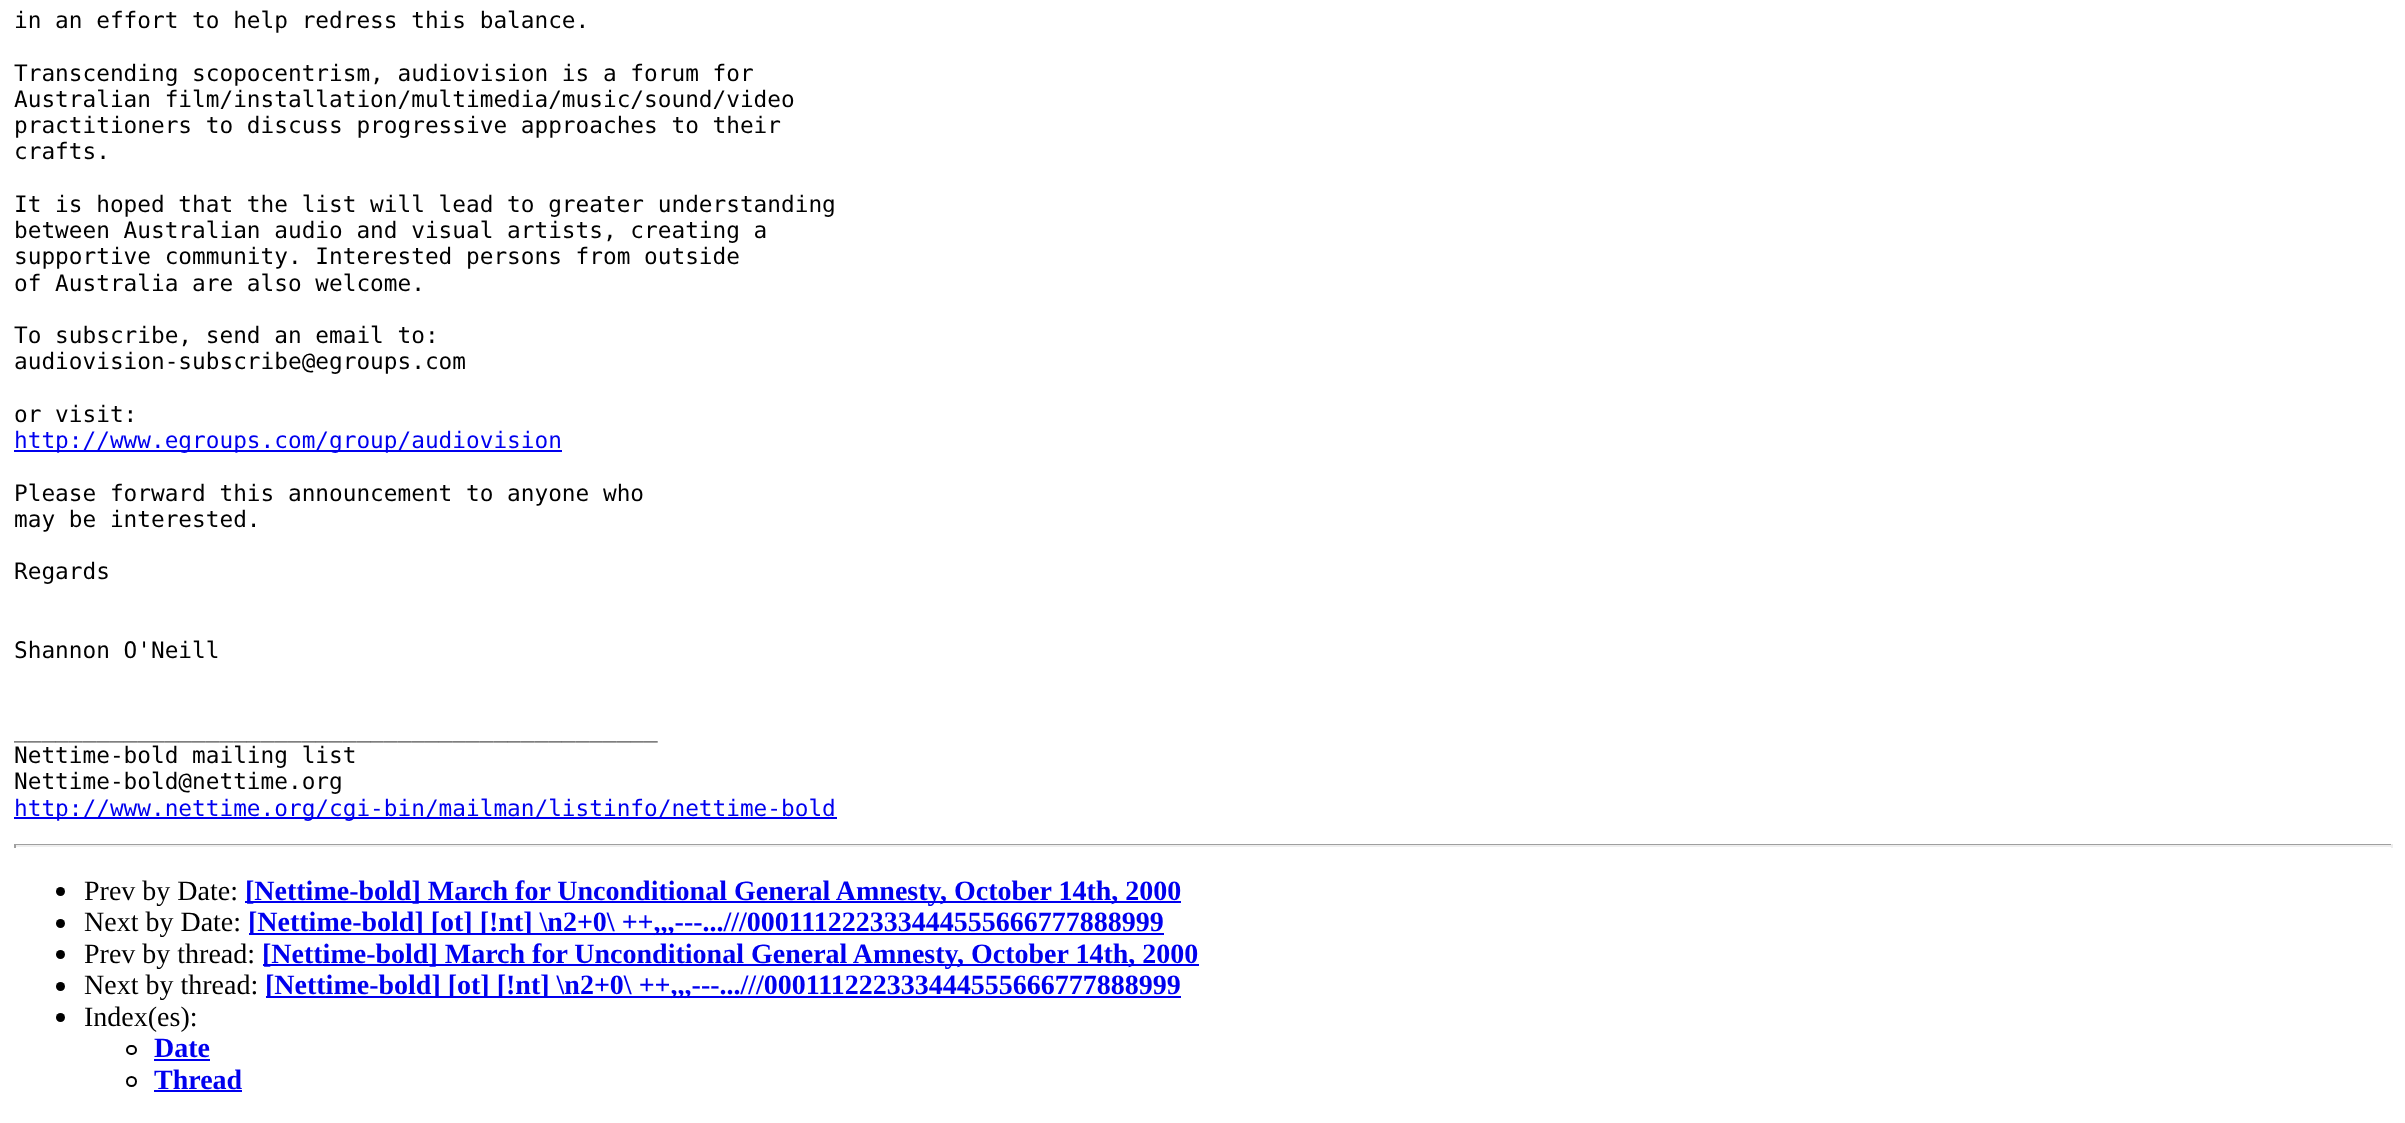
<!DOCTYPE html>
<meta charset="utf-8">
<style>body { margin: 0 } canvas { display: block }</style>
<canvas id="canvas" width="2405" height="1123"></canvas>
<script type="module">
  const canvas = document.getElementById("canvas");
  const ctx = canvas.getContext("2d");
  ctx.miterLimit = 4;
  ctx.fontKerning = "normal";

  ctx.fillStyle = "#ffffff";
  ctx.fillRect(0, 0, 2405, 1123);
  ctx.font = "22.75px DejaVu Sans Mono";
  ctx.fillStyle = "#000000";
  ctx.fillText("in an effort to help redress this balance.", 14, 28);
  ctx.fillText("Transcending scopocentrism, audiovision is a forum for", 14, 81);
  ctx.fillText("Australian film/installation/multimedia/music/sound/video", 14, 107);
  ctx.fillText("practitioners to discuss progressive approaches to their", 14, 133);
  ctx.fillText("crafts.", 14, 159);
  ctx.fillText("It is hoped that the list will lead to greater understanding", 14, 212);
  ctx.fillText("between Australian audio and visual artists, creating a", 14, 238);
  ctx.fillText("supportive community. Interested persons from outside", 14, 264);
  ctx.fillText("of Australia are also welcome.", 14, 291);
  ctx.fillText("To subscribe, send an email to:", 14, 343);
  ctx.fillText("audiovision-subscribe@egroups.com", 14, 369);
  ctx.fillText("or visit:", 14, 422);
  ctx.fillStyle = "#0000ee";
  ctx.fillRect(14, 450, 548, 2);
  ctx.fillText("http://www.egroups.com/group/audiovision", 14, 448);
  ctx.fillStyle = "#000000";
  ctx.fillText("Please forward this announcement to anyone who", 14, 501);
  ctx.fillText("may be interested.", 14, 527);
  ctx.fillText("Regards", 14, 579);
  ctx.fillText("Shannon O'Neill", 14, 658);
  ctx.fillText("_______________________________________________", 14, 737);
  ctx.fillText("Nettime-bold mailing list", 14, 763);
  ctx.fillText("Nettime-bold@nettime.org", 14, 789);
  ctx.fillStyle = "#0000ee";
  ctx.fillRect(14, 817, 823, 2);
  ctx.fillText("http://www.nettime.org/cgi-bin/mailman/listinfo/nettime-bold", 14, 816);
  ctx.fillStyle = "#9f9f9f";
  ctx.fillRect(14, 844, 2378, 1);
  ctx.fillStyle = "#eeeeee";
  ctx.fillRect(2391, 844, 2, 4);
  ctx.fillRect(14, 845, 2378, 2);
  ctx.fillStyle = "#9f9f9f";
  ctx.fillRect(14, 844, 2, 4);
  ctx.fillStyle = "#000000";
  ctx.beginPath();
  ctx.arc(60.5, 891.5, 4.5, 0, Math.PI * 2);
  ctx.fill();
  ctx.font = "28px Liberation Serif";
  ctx.fillText("Prev by Date:", 84, 900);
  ctx.fillStyle = "#0000ee";
  ctx.fillRect(245, 901, 936, 2);
  ctx.font = "bold 28px Liberation Serif";
  ctx.fillText("[Nettime-bold] March for Unconditional General Amnesty, October 14th, 2000", 245, 900);
  ctx.fillStyle = "#000000";
  ctx.beginPath();
  ctx.arc(60.5, 923.5, 4.5, 0, Math.PI * 2);
  ctx.fill();
  ctx.font = "28px Liberation Serif";
  ctx.fillText("Next by Date:", 84, 931);
  ctx.fillStyle = "#0000ee";
  ctx.fillRect(249, 933, 915, 2);
  ctx.font = "bold 28px Liberation Serif";
  ctx.fillText("[Nettime-bold] [ot] [!nt] \\n2+0\\ ++,,,---...///000111222333444555666777888999", 248, 931);
  ctx.fillStyle = "#000000";
  ctx.beginPath();
  ctx.arc(60.5, 954.5, 4.5, 0, Math.PI * 2);
  ctx.fill();
  ctx.font = "28px Liberation Serif";
  ctx.fillText("Prev by thread:", 84, 963);
  ctx.fillStyle = "#0000ee";
  ctx.fillRect(263, 964, 936, 2);
  ctx.font = "bold 28px Liberation Serif";
  ctx.fillText("[Nettime-bold] March for Unconditional General Amnesty, October 14th, 2000", 262, 963);
  ctx.fillStyle = "#000000";
  ctx.beginPath();
  ctx.arc(60.5, 986.5, 4.5, 0, Math.PI * 2);
  ctx.fill();
  ctx.font = "28px Liberation Serif";
  ctx.fillText("Next by thread:", 84, 994);
  ctx.fillStyle = "#0000ee";
  ctx.fillRect(266, 996, 915, 2);
  ctx.font = "bold 28px Liberation Serif";
  ctx.fillText("[Nettime-bold] [ot] [!nt] \\n2+0\\ ++,,,---...///000111222333444555666777888999", 265, 994);
  ctx.fillStyle = "#000000";
  ctx.beginPath();
  ctx.arc(60.5, 1017.5, 4.5, 0, Math.PI * 2);
  ctx.fill();
  ctx.font = "28px Liberation Serif";
  ctx.fillText("Index(es):", 84, 1026);
  ctx.beginPath();
  ctx.roundRect(127, 1046, 9, 8, 4);
  ctx.strokeStyle = "#000000";
  ctx.lineWidth = 2;
  ctx.stroke();
  ctx.font = "bold 28px Liberation Serif";
  ctx.fillStyle = "#0000ee";
  ctx.fillText("Date", 154, 1057);
  ctx.fillRect(154, 1059, 56, 2);
  ctx.beginPath();
  ctx.arc(131.5, 1081.5, 4.5, 0, Math.PI * 2);
  ctx.stroke();
  ctx.fillText("Thread", 154, 1089);
  ctx.fillRect(154, 1090, 88, 2);
</script>
